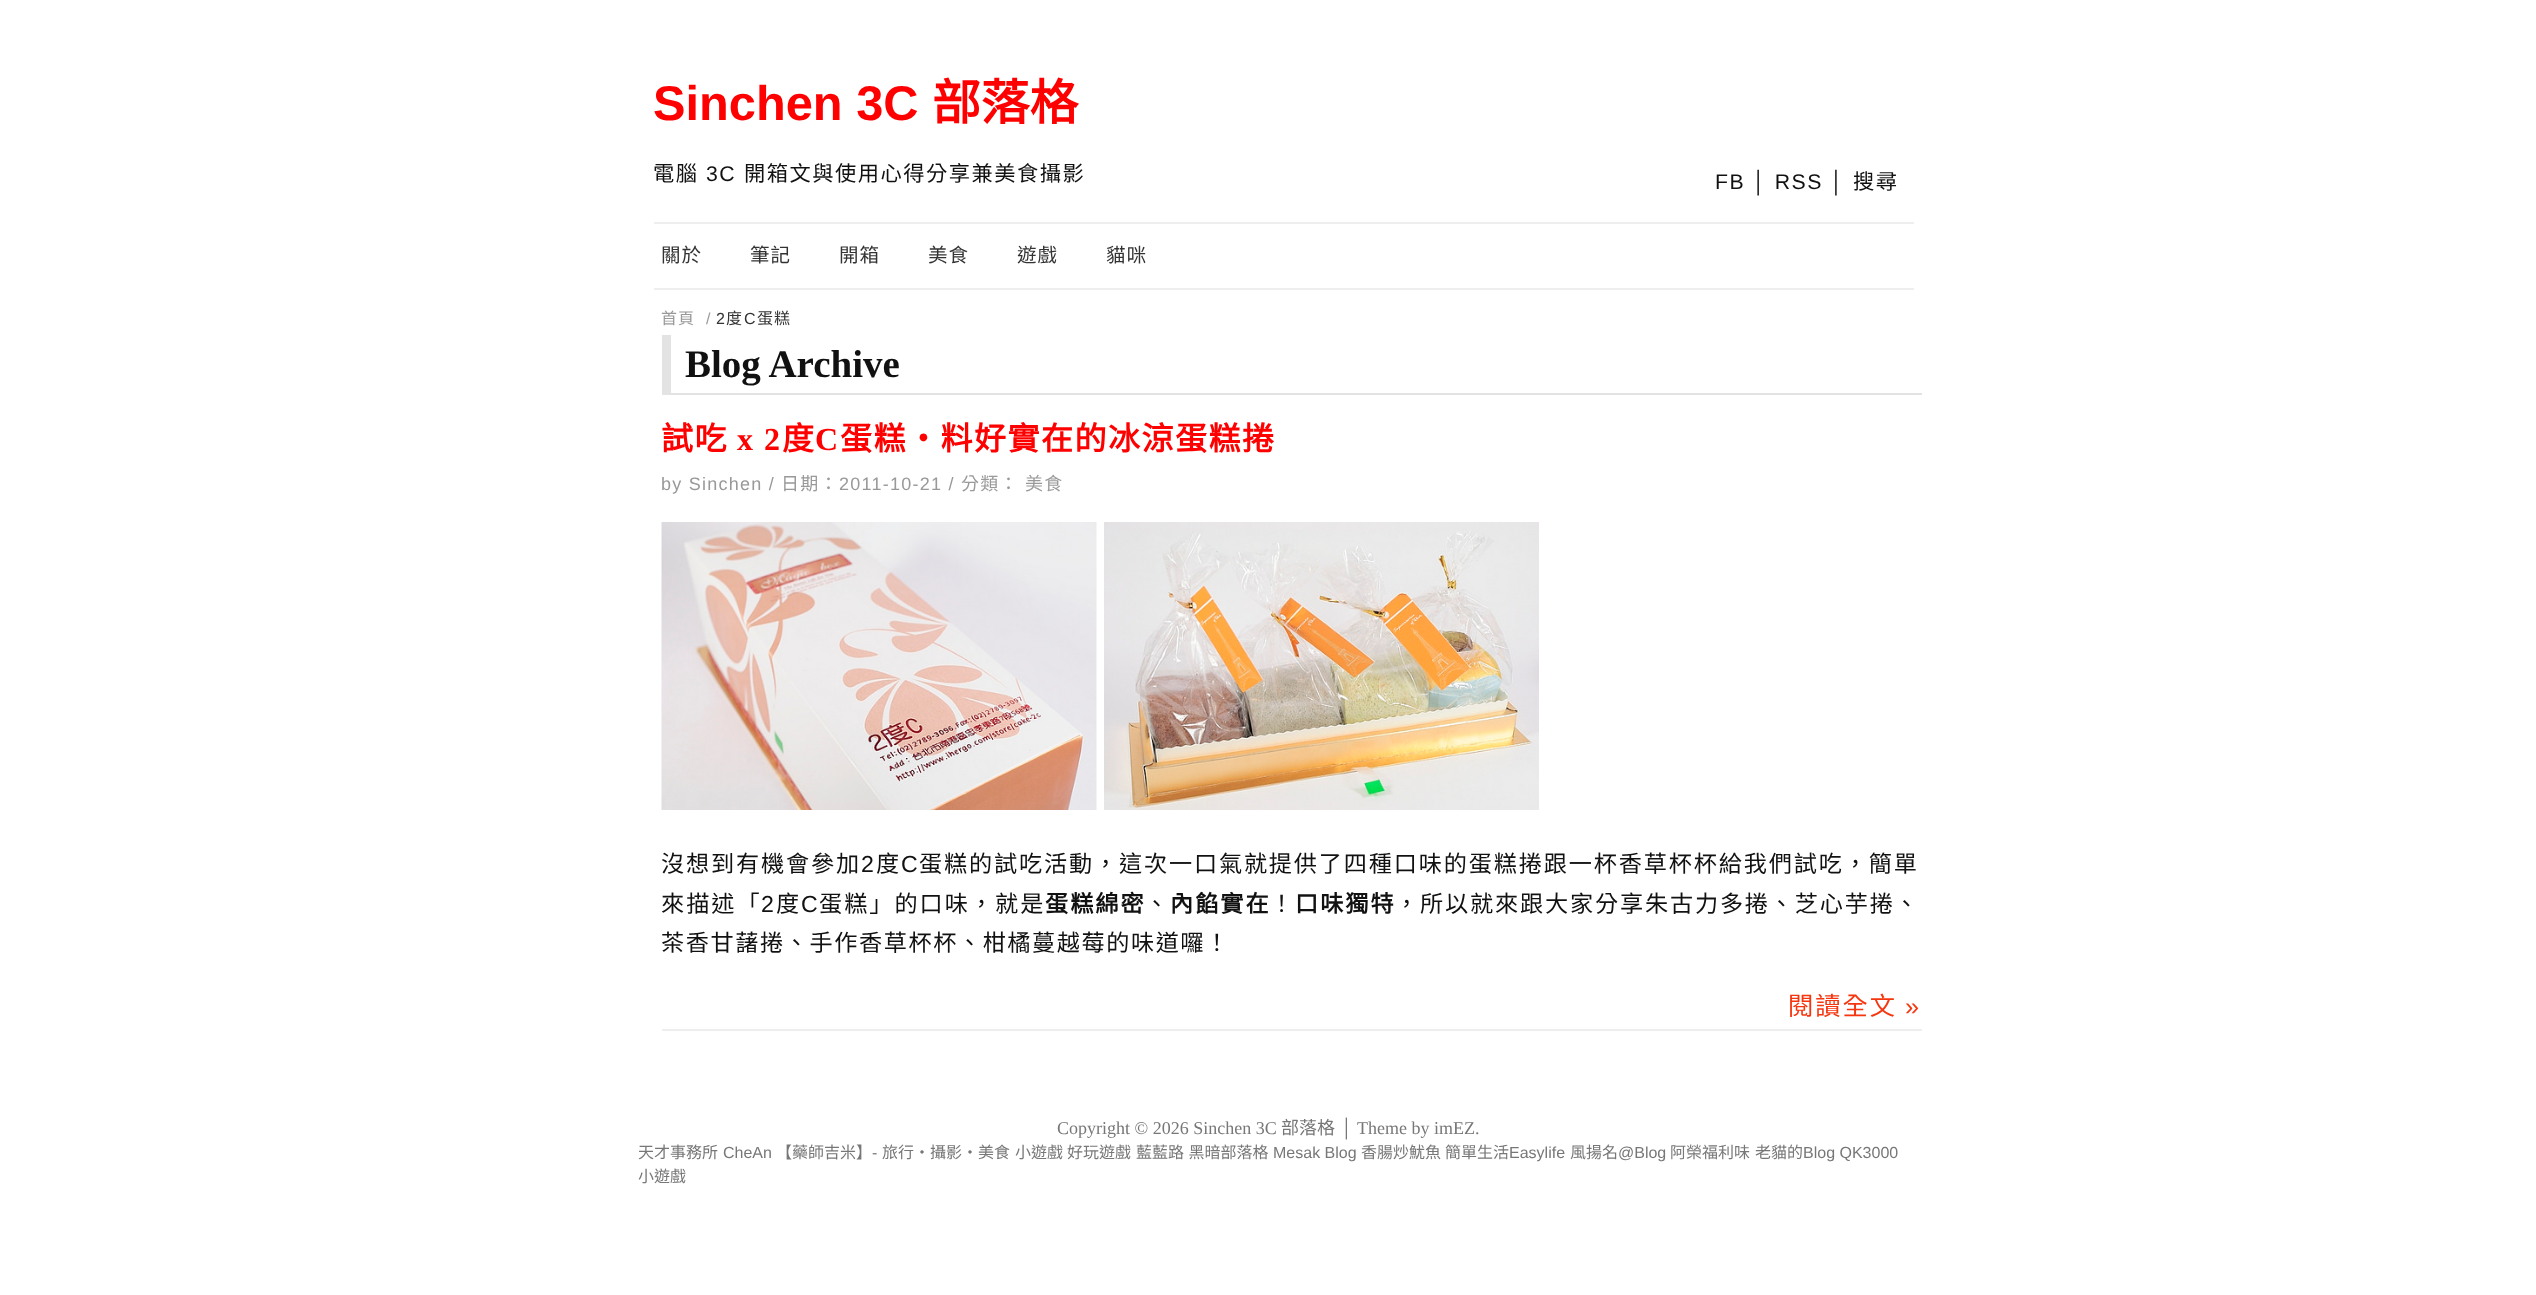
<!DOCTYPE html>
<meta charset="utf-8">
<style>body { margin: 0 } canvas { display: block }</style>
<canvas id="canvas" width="2536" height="1295"></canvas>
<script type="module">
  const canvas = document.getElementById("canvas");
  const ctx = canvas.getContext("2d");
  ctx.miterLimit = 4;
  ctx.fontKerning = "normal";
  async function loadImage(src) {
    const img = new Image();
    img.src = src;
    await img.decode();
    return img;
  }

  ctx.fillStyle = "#ffffff";
  ctx.fillRect(0, 0, 2536, 1295);
  ctx.font = "bold 48.75px Liberation Sans";
  ctx.fillStyle = "#ff0000";
  ctx.fillText("Sinchen 3C", 653, 120);
  ctx.font = "bold 48.75px Noto Sans CJK TC";
  ctx.fillText("部落格", 932, 120);
  ctx.letterSpacing = "1.5px";
  ctx.font = "21.25px Noto Sans CJK TC";
  ctx.fillStyle = "#111111";
  ctx.fillText("電腦", 653, 181);
  ctx.font = "21.25px Liberation Sans";
  ctx.fillText("3C", 706, 181);
  ctx.font = "21.25px Noto Sans CJK TC";
  ctx.fillText("開箱文與使用心得分享兼美食攝影", 744, 181);
  ctx.font = "21.25px Liberation Sans";
  ctx.fillText("FB │ RSS │", 1715, 189);
  ctx.font = "21.25px Noto Sans CJK TC";
  ctx.fillText("搜尋", 1853, 189);
  ctx.fillStyle = "#eeeeee";
  ctx.fillRect(654, 222, 1260, 2);
  ctx.fillRect(654, 288, 1260, 2);
  ctx.letterSpacing = "1px";
  ctx.font = "19.5px Noto Sans CJK TC";
  ctx.fillStyle = "#333333";
  ctx.fillText("關於", 661, 262);
  ctx.fillText("筆記", 750, 262);
  ctx.fillText("開箱", 839, 262);
  ctx.fillText("美食", 928, 262);
  ctx.fillText("遊戲", 1017, 262);
  ctx.fillText("貓咪", 1106, 262);
  ctx.font = "16px Noto Sans CJK TC";
  ctx.fillStyle = "#999999";
  ctx.fillText("首頁", 661, 324);
  ctx.font = "16px Liberation Sans";
  ctx.fillText("/", 706, 324);
  ctx.fillStyle = "#333333";
  ctx.fillText("2", 716, 324);
  ctx.font = "16px Noto Sans CJK TC";
  ctx.fillText("度", 726, 324);
  ctx.font = "16px Liberation Sans";
  ctx.fillText("C", 744, 324);
  ctx.font = "16px Noto Sans CJK TC";
  ctx.fillText("蛋糕", 757, 324);
  ctx.fillStyle = "#e3e3e3";
  ctx.fillRect(671, 393, 1251, 2);
  ctx.fillRect(662, 335, 9, 60);
  ctx.letterSpacing = "0px";
  ctx.font = "bold 39px Liberation Serif";
  ctx.fillStyle = "#111111";
  ctx.fillText("Blog Archive", 685, 377);
  ctx.letterSpacing = "1.5px";
  ctx.font = "bold 32px Noto Sans CJK TC";
  ctx.fillStyle = "#ff0000";
  ctx.fillText("試吃", 661, 450);
  ctx.font = "bold 32px Liberation Serif";
  ctx.fillText("x 2", 737, 450);
  ctx.font = "bold 32px Noto Sans CJK TC";
  ctx.fillText("度", 782, 450);
  ctx.font = "bold 32px Liberation Serif";
  ctx.fillText("C", 815, 450);
  ctx.font = "bold 32px Noto Sans CJK TC";
  ctx.fillText("蛋糕‧料好實在的冰涼蛋糕捲", 840, 450);
  ctx.letterSpacing = "1.25px";
  ctx.font = "18px Liberation Sans";
  ctx.fillStyle = "#999999";
  ctx.fillText("by Sinchen /", 661, 490);
  ctx.font = "18px Noto Sans CJK TC";
  ctx.fillText("日期：", 781, 490);
  ctx.font = "18px Liberation Sans";
  ctx.fillText("2011-10-21 /", 839, 490);
  ctx.font = "18px Noto Sans CJK TC";
  ctx.fillText("分類：", 961, 490);
  ctx.fillText("美食", 1025, 490);
  ctx.drawImage(await loadImage("img1.png"), 661, 522, 436, 288);
  ctx.drawImage(await loadImage("img2.png"), 1104, 522, 435, 288);
  ctx.letterSpacing = "1.85px";
  ctx.font = "23.15px Noto Sans CJK TC";
  ctx.fillStyle = "#111111";
  ctx.fillText("沒想到有機會參加", 661, 872);
  ctx.font = "23.15px Liberation Sans";
  ctx.fillText("2", 861, 872);
  ctx.font = "23.15px Noto Sans CJK TC";
  ctx.fillText("度", 876, 872);
  ctx.font = "23.15px Liberation Sans";
  ctx.fillText("C", 901, 872);
  ctx.font = "23.15px Noto Sans CJK TC";
  ctx.fillText("蛋糕的試吃活動，這次一口氣就提供了四種口味的蛋糕捲跟一杯香草杯杯給我們試吃，簡單", 919, 872);
  ctx.letterSpacing = "2px";
  ctx.fillText("來描述「", 661, 912);
  ctx.font = "23.15px Liberation Sans";
  ctx.fillText("2", 761, 912);
  ctx.font = "23.15px Noto Sans CJK TC";
  ctx.fillText("度", 776, 912);
  ctx.font = "23.15px Liberation Sans";
  ctx.fillText("C", 801, 912);
  ctx.font = "23.15px Noto Sans CJK TC";
  ctx.fillText("蛋糕」的口味，就是", 819, 912);
  ctx.font = "bold 23.15px Noto Sans CJK TC";
  ctx.fillText("蛋糕綿密", 1045, 912);
  ctx.letterSpacing = "1.6px";
  ctx.font = "23.15px Noto Sans CJK TC";
  ctx.fillText("、", 1145, 912);
  ctx.letterSpacing = "2px";
  ctx.font = "bold 23.15px Noto Sans CJK TC";
  ctx.fillText("內餡實在", 1170, 912);
  ctx.letterSpacing = "1.6px";
  ctx.font = "23.15px Noto Sans CJK TC";
  ctx.fillText("！", 1270, 912);
  ctx.letterSpacing = "2px";
  ctx.font = "bold 23.15px Noto Sans CJK TC";
  ctx.fillText("口味獨特", 1295, 912);
  ctx.letterSpacing = "1.85px";
  ctx.font = "23.15px Noto Sans CJK TC";
  ctx.fillText("，所以就來跟大家分享朱古力多捲、芝心芋捲、", 1395, 912);
  ctx.letterSpacing = "1.6px";
  ctx.fillText("茶香甘藷捲、手作香草杯杯、柑橘蔓越莓的味道囉！", 661, 951);
  ctx.fillStyle = "#eeeeee";
  ctx.fillRect(662, 1029, 1260, 2);
  ctx.letterSpacing = "2px";
  ctx.font = "25.25px Noto Sans CJK TC";
  ctx.fillStyle = "#f5360f";
  ctx.fillText("閱讀全文", 1788, 1015);
  ctx.font = "25.25px Liberation Sans";
  ctx.fillText("»", 1905, 1015);
  ctx.letterSpacing = "0px";
  ctx.font = "18px Liberation Serif";
  ctx.fillStyle = "#777777";
  ctx.fillText("Copyright © 2026 Sinchen 3C", 1057, 1134);
  ctx.font = "18px Noto Sans CJK TC";
  ctx.fillText("部落格", 1281, 1134);
  ctx.font = "18px Liberation Serif";
  ctx.fillText("│ Theme by imEZ.", 1340, 1134);
  ctx.font = "16px Noto Sans CJK TC";
  ctx.fillText("天才事務所", 638, 1158);
  ctx.font = "16px Liberation Sans";
  ctx.fillText("CheAn", 723, 1158);
  ctx.font = "16px Noto Sans CJK TC";
  ctx.fillText("【藥師吉米】", 776, 1158);
  ctx.font = "16px Liberation Sans";
  ctx.fillText("-", 872, 1158);
  ctx.font = "16px Noto Sans CJK TC";
  ctx.fillText("旅行‧攝影‧美食", 882, 1158);
  ctx.fillText("小遊戲", 1015, 1158);
  ctx.fillText("好玩遊戲", 1067, 1158);
  ctx.wordSpacing = "1px";
  ctx.fillText("藍藍路 黑暗部落格", 1136, 1158);
  ctx.wordSpacing = "0px";
  ctx.font = "16px Liberation Sans";
  ctx.fillText("Mesak Blog", 1273, 1158);
  ctx.font = "16px Noto Sans CJK TC";
  ctx.fillText("香腸炒魷魚", 1361, 1158);
  ctx.fillText("簡單生活", 1445, 1158);
  ctx.font = "16px Liberation Sans";
  ctx.fillText("Easylife", 1509, 1158);
  ctx.font = "16px Noto Sans CJK TC";
  ctx.fillText("風揚名", 1570, 1158);
  ctx.font = "16px Liberation Sans";
  ctx.fillText("@Blog", 1618, 1158);
  ctx.font = "16px Noto Sans CJK TC";
  ctx.fillText("阿榮福利味", 1670, 1158);
  ctx.fillText("老貓的", 1755, 1158);
  ctx.font = "16px Liberation Sans";
  ctx.fillText("Blog QK3000", 1803, 1158);
  ctx.font = "16px Noto Sans CJK TC";
  ctx.fillText("小遊戲", 638, 1182);
</script>
